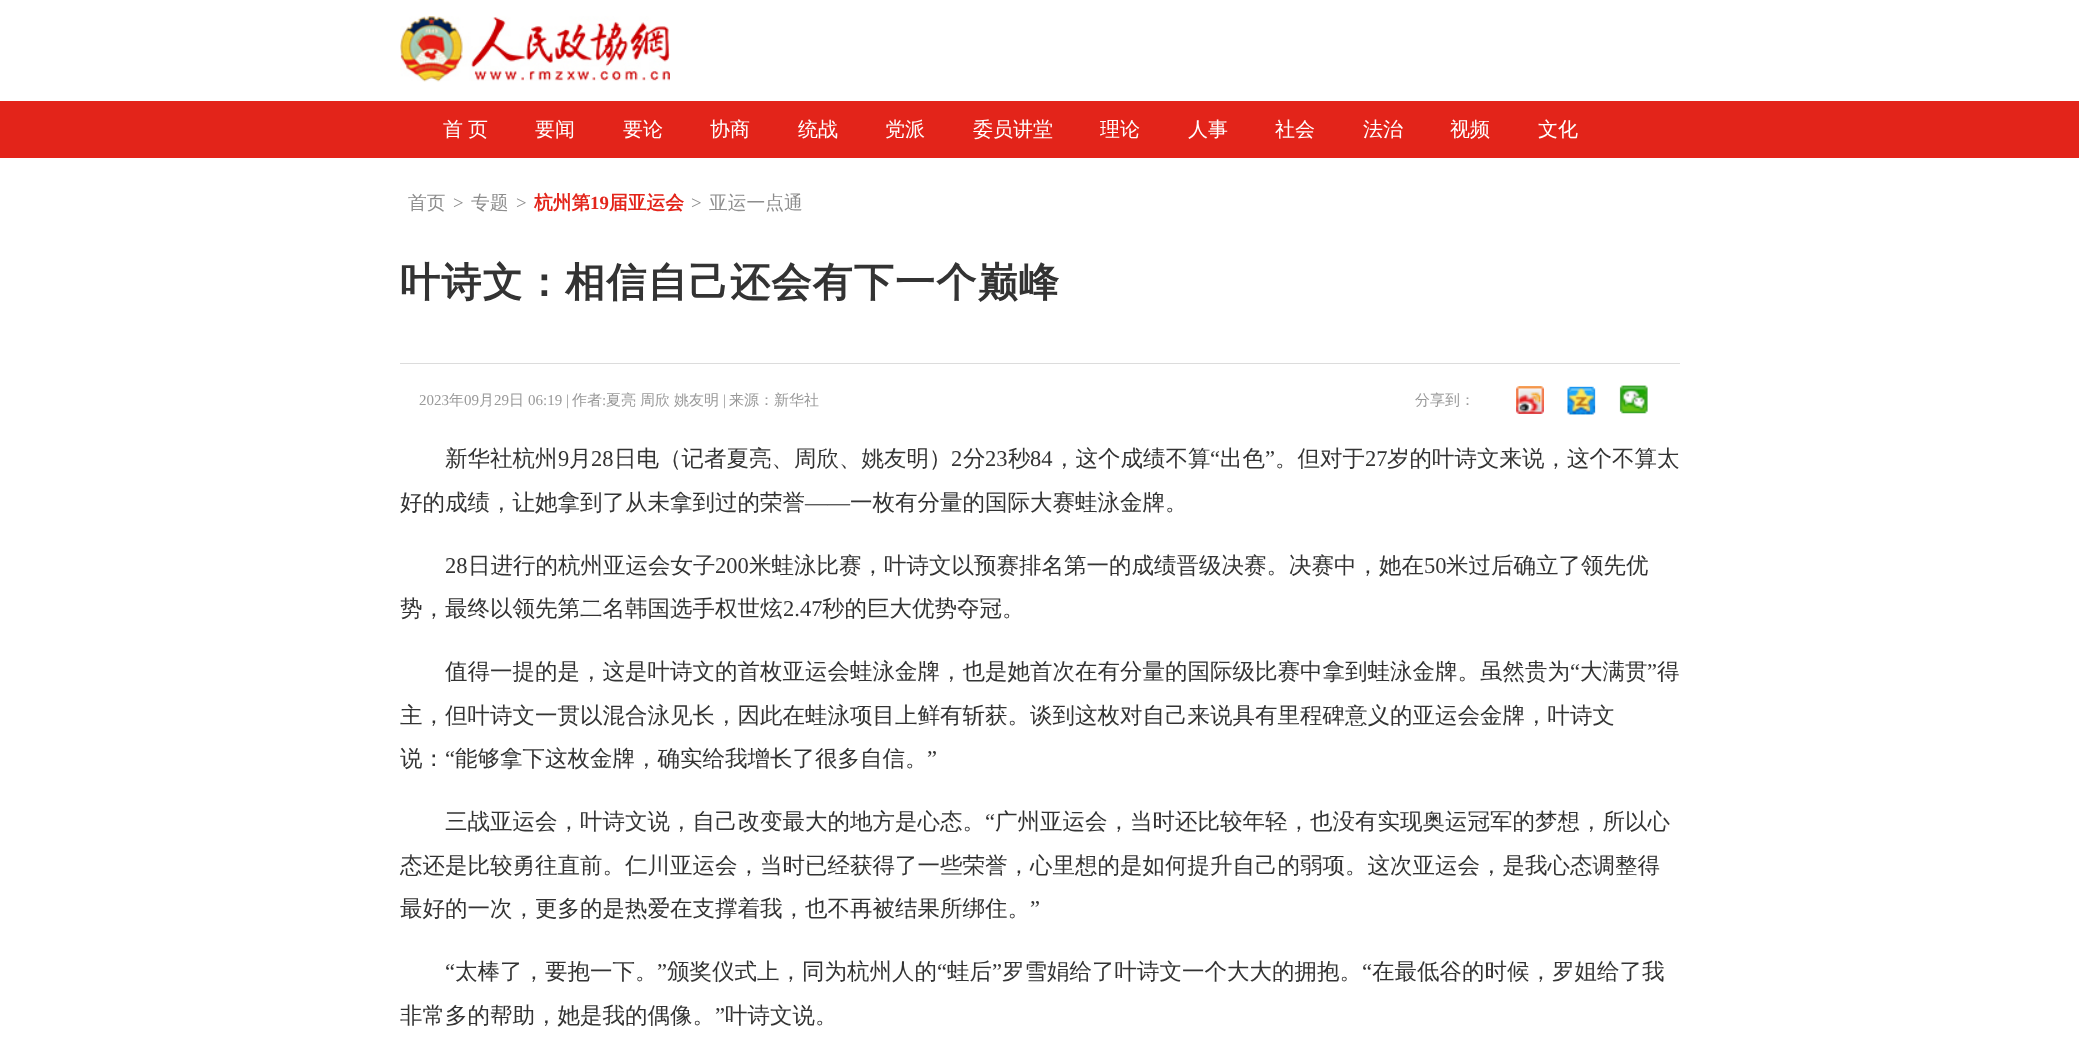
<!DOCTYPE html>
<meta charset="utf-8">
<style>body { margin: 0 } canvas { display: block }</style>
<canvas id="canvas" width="2079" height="1041"></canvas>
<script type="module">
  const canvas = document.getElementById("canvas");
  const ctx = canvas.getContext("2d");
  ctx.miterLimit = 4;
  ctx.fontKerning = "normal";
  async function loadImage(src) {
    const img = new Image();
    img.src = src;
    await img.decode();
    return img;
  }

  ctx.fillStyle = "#ffffff";
  ctx.fillRect(0, 0, 2079, 1041);
  ctx.drawImage(await loadImage("img1.png"), 400, 16, 270, 66);
  ctx.fillStyle = "#e3241a";
  ctx.fillRect(0, 101, 2079, 57);
  ctx.wordSpacing = "-1px";
  ctx.font = "500 20px WenQuanYi Zen Hei";
  ctx.fillStyle = "#ffffff";
  ctx.fillText("首 页", 443, 136);
  ctx.wordSpacing = "0px";
  ctx.fillText("要闻", 535, 136);
  ctx.fillText("要论", 623, 136);
  ctx.fillText("协商", 710, 136);
  ctx.fillText("统战", 798, 136);
  ctx.fillText("党派", 885, 136);
  ctx.fillText("委员讲堂", 973, 136);
  ctx.fillText("理论", 1100, 136);
  ctx.fillText("人事", 1188, 136);
  ctx.fillText("社会", 1275, 136);
  ctx.fillText("法治", 1363, 136);
  ctx.fillText("视频", 1450, 136);
  ctx.fillText("文化", 1538, 136);
  ctx.font = "500 18.75px WenQuanYi Zen Hei";
  ctx.fillStyle = "#8d8d8d";
  ctx.fillText("首页", 408, 209);
  ctx.font = "18.75px Liberation Serif";
  ctx.fillText(">", 453, 209);
  ctx.font = "500 18.75px WenQuanYi Zen Hei";
  ctx.fillText("专题", 471, 209);
  ctx.font = "18.75px Liberation Serif";
  ctx.fillText(">", 516, 209);
  ctx.font = "bold 18.75px WenQuanYi Zen Hei";
  ctx.fillStyle = "#e3241a";
  ctx.fillText("杭州第", 534, 209);
  ctx.font = "bold 18.75px Liberation Serif";
  ctx.fillText("19", 590, 209);
  ctx.font = "bold 18.75px WenQuanYi Zen Hei";
  ctx.fillText("届亚运会", 609, 209);
  ctx.font = "18.75px Liberation Serif";
  ctx.fillStyle = "#8d8d8d";
  ctx.fillText(">", 691, 209);
  ctx.font = "500 18.75px WenQuanYi Zen Hei";
  ctx.fillText("亚运一点通", 709, 209);
  ctx.letterSpacing = "1.25px";
  ctx.font = "bold 40px WenQuanYi Zen Hei";
  ctx.fillStyle = "#333333";
  ctx.fillText("叶诗文：相信自己还会有下一个巅峰", 400, 296);
  ctx.fillStyle = "#dcdcdc";
  ctx.fillRect(400, 363, 1280, 1);
  ctx.letterSpacing = "0px";
  ctx.font = "15px Liberation Serif";
  ctx.fillStyle = "#999999";
  ctx.fillText("2023", 419, 405);
  ctx.font = "500 15px WenQuanYi Zen Hei";
  ctx.fillText("年", 449, 405);
  ctx.font = "15px Liberation Serif";
  ctx.fillText("09", 464, 405);
  ctx.font = "500 15px WenQuanYi Zen Hei";
  ctx.fillText("月", 479, 405);
  ctx.font = "15px Liberation Serif";
  ctx.fillText("29", 494, 405);
  ctx.font = "500 15px WenQuanYi Zen Hei";
  ctx.fillText("日", 509, 405);
  ctx.font = "15px Liberation Serif";
  ctx.fillText("06:19 |", 528, 405);
  ctx.font = "500 15px WenQuanYi Zen Hei";
  ctx.fillText("作者", 572, 405);
  ctx.font = "15px Liberation Serif";
  ctx.fillText(":", 602, 405);
  ctx.font = "500 15px WenQuanYi Zen Hei";
  ctx.fillText("夏亮", 606, 405);
  ctx.fillText("周欣", 640, 405);
  ctx.fillText("姚友明", 674, 405);
  ctx.font = "15px Liberation Serif";
  ctx.fillText("|", 723, 405);
  ctx.font = "500 15px WenQuanYi Zen Hei";
  ctx.fillText("来源：新华社", 729, 405);
  ctx.fillText("分享到：", 1415, 405);
  ctx.drawImage(await loadImage("img2.png"), 1516, 386, 28, 28);
  ctx.drawImage(await loadImage("img3.png"), 1567, 386, 29, 29);
  ctx.drawImage(await loadImage("img4.png"), 1619, 385, 29, 29);
  ctx.font = "500 22.5px WenQuanYi Zen Hei";
  ctx.fillStyle = "#333333";
  ctx.fillText("新华社杭州", 445, 466);
  ctx.font = "22.5px Liberation Serif";
  ctx.fillText("9", 558, 466);
  ctx.font = "500 22.5px WenQuanYi Zen Hei";
  ctx.fillText("月", 569, 466);
  ctx.font = "22.5px Liberation Serif";
  ctx.fillText("28", 591, 466);
  ctx.font = "500 22.5px WenQuanYi Zen Hei";
  ctx.fillText("日电（记者夏亮、周欣、姚友明）", 614, 466);
  ctx.font = "22.5px Liberation Serif";
  ctx.fillText("2", 951, 466);
  ctx.font = "500 22.5px WenQuanYi Zen Hei";
  ctx.fillText("分", 963, 466);
  ctx.font = "22.5px Liberation Serif";
  ctx.fillText("23", 985, 466);
  ctx.font = "500 22.5px WenQuanYi Zen Hei";
  ctx.fillText("秒", 1008, 466);
  ctx.font = "22.5px Liberation Serif";
  ctx.fillText("84", 1030, 466);
  ctx.font = "500 22.5px WenQuanYi Zen Hei";
  ctx.fillText("，这个成绩不算", 1053, 466);
  ctx.font = "22.5px Liberation Serif";
  ctx.fillText("“", 1210, 466);
  ctx.font = "500 22.5px WenQuanYi Zen Hei";
  ctx.fillText("出色", 1220, 466);
  ctx.font = "22.5px Liberation Serif";
  ctx.fillText("”", 1265, 466);
  ctx.font = "500 22.5px WenQuanYi Zen Hei";
  ctx.fillText("。但对于", 1275, 466);
  ctx.font = "22.5px Liberation Serif";
  ctx.fillText("27", 1365, 466);
  ctx.font = "500 22.5px WenQuanYi Zen Hei";
  ctx.fillText("岁的叶诗文来说，这个不算太", 1387, 466);
  ctx.fillText("好的成绩，让她拿到了从未拿到过的荣誉", 400, 510);
  ctx.font = "22.5px Liberation Serif";
  ctx.fillText("——", 805, 510);
  ctx.font = "500 22.5px WenQuanYi Zen Hei";
  ctx.fillText("一枚有分量的国际大赛蛙泳金牌。", 850, 510);
  ctx.font = "22.5px Liberation Serif";
  ctx.fillText("28", 445, 573);
  ctx.font = "500 22.5px WenQuanYi Zen Hei";
  ctx.fillText("日进行的杭州亚运会女子", 468, 573);
  ctx.font = "22.5px Liberation Serif";
  ctx.fillText("200", 715, 573);
  ctx.font = "500 22.5px WenQuanYi Zen Hei";
  ctx.fillText("米蛙泳比赛，叶诗文以预赛排名第一的成绩晋级决赛。决赛中，她在", 749, 573);
  ctx.font = "22.5px Liberation Serif";
  ctx.fillText("50", 1424, 573);
  ctx.font = "500 22.5px WenQuanYi Zen Hei";
  ctx.fillText("米过后确立了领先优", 1446, 573);
  ctx.fillText("势，最终以领先第二名韩国选手权世炫", 400, 616);
  ctx.font = "22.5px Liberation Serif";
  ctx.fillText("2.47", 783, 616);
  ctx.font = "500 22.5px WenQuanYi Zen Hei";
  ctx.fillText("秒的巨大优势夺冠。", 822, 616);
  ctx.fillText("值得一提的是，这是叶诗文的首枚亚运会蛙泳金牌，也是她首次在有分量的国际级比赛中拿到蛙泳金牌。虽然贵为", 445, 679);
  ctx.font = "22.5px Liberation Serif";
  ctx.fillText("“", 1570, 679);
  ctx.font = "500 22.5px WenQuanYi Zen Hei";
  ctx.fillText("大满贯", 1580, 679);
  ctx.font = "22.5px Liberation Serif";
  ctx.fillText("”", 1647, 679);
  ctx.font = "500 22.5px WenQuanYi Zen Hei";
  ctx.fillText("得", 1657, 679);
  ctx.fillText("主，但叶诗文一贯以混合泳见长，因此在蛙泳项目上鲜有斩获。谈到这枚对自己来说具有里程碑意义的亚运会金牌，叶诗文", 400, 723);
  ctx.fillText("说：", 400, 766);
  ctx.font = "22.5px Liberation Serif";
  ctx.fillText("“", 445, 766);
  ctx.font = "500 22.5px WenQuanYi Zen Hei";
  ctx.fillText("能够拿下这枚金牌，确实给我增长了很多自信。", 455, 766);
  ctx.font = "22.5px Liberation Serif";
  ctx.fillText("”", 927, 766);
  ctx.font = "500 22.5px WenQuanYi Zen Hei";
  ctx.fillText("三战亚运会，叶诗文说，自己改变最大的地方是心态。", 445, 829);
  ctx.font = "22.5px Liberation Serif";
  ctx.fillText("“", 985, 829);
  ctx.font = "500 22.5px WenQuanYi Zen Hei";
  ctx.fillText("广州亚运会，当时还比较年轻，也没有实现奥运冠军的梦想，所以心", 995, 829);
  ctx.fillText("态还是比较勇往直前。仁川亚运会，当时已经获得了一些荣誉，心里想的是如何提升自己的弱项。这次亚运会，是我心态调整得", 400, 873);
  ctx.fillText("最好的一次，更多的是热爱在支撑着我，也不再被结果所绑住。", 400, 916);
  ctx.font = "22.5px Liberation Serif";
  ctx.fillText("”", 1030, 916);
  ctx.fillText("“", 445, 979);
  ctx.font = "500 22.5px WenQuanYi Zen Hei";
  ctx.fillText("太棒了，要抱一下。", 455, 979);
  ctx.font = "22.5px Liberation Serif";
  ctx.fillText("”", 657, 979);
  ctx.font = "500 22.5px WenQuanYi Zen Hei";
  ctx.fillText("颁奖仪式上，同为杭州人的", 667, 979);
  ctx.font = "22.5px Liberation Serif";
  ctx.fillText("“", 937, 979);
  ctx.font = "500 22.5px WenQuanYi Zen Hei";
  ctx.fillText("蛙后", 947, 979);
  ctx.font = "22.5px Liberation Serif";
  ctx.fillText("”", 992, 979);
  ctx.font = "500 22.5px WenQuanYi Zen Hei";
  ctx.fillText("罗雪娟给了叶诗文一个大大的拥抱。", 1002, 979);
  ctx.font = "22.5px Liberation Serif";
  ctx.fillText("“", 1362, 979);
  ctx.font = "500 22.5px WenQuanYi Zen Hei";
  ctx.fillText("在最低谷的时候，罗姐给了我", 1372, 979);
  ctx.fillText("非常多的帮助，她是我的偶像。", 400, 1023);
  ctx.font = "22.5px Liberation Serif";
  ctx.fillText("”", 715, 1023);
  ctx.font = "500 22.5px WenQuanYi Zen Hei";
  ctx.fillText("叶诗文说。", 725, 1023);
</script>
